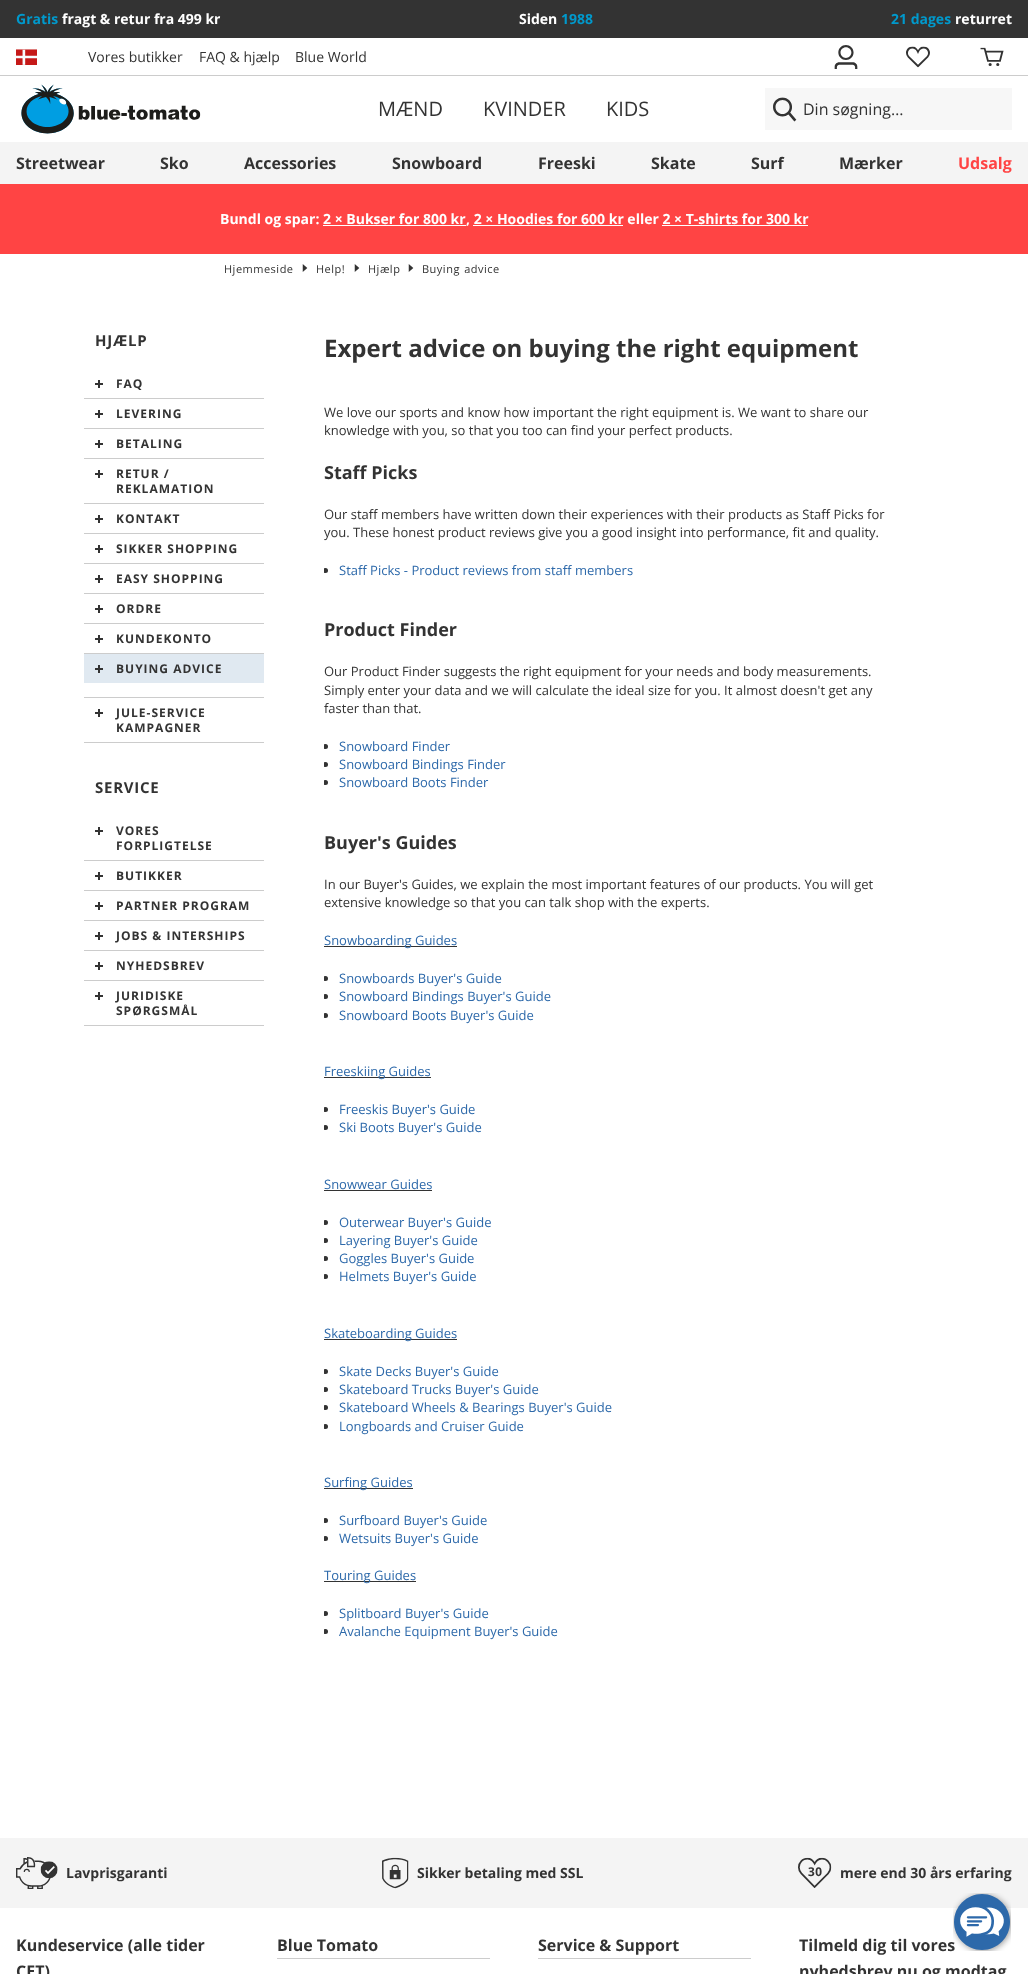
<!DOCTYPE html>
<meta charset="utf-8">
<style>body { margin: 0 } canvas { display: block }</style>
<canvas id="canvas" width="1028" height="1974"></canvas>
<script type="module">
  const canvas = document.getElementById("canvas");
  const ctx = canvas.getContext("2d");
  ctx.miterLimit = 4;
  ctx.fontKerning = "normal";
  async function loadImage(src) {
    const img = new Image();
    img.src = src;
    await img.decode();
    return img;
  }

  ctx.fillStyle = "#ffffff";
  ctx.fillRect(0, 0, 1028, 1974);
  ctx.fillStyle = "#333333";
  ctx.fillRect(0, 0, 1028, 38);
  ctx.font = "bold 14px Open Sans";
  ctx.fillStyle = "#0099cc";
  ctx.fillText("Gratis", 16, 24);
  ctx.fillStyle = "#ffffff";
  ctx.fillText("fragt & retur fra 499 kr", 62, 24);
  ctx.fillText("Siden", 519, 24);
  ctx.fillStyle = "#0099cc";
  ctx.fillText("1988", 561, 24);
  ctx.fillText("21 dages", 891, 24);
  ctx.fillStyle = "#ffffff";
  ctx.fillText("returret", 955, 24);
  ctx.drawImage(await loadImage("img1.png"), 16, 49, 21, 16);
  ctx.font = "14px Open Sans";
  ctx.fillStyle = "#333333";
  ctx.fillText("Vores butikker", 88, 62);
  ctx.fillText("FAQ & hjælp", 199, 62);
  ctx.fillText("Blue World", 295, 62);
  ctx.drawImage(await loadImage("img2.png"), 834, 45, 24, 24);
  ctx.drawImage(await loadImage("img3.png"), 906, 46, 24, 22);
  ctx.drawImage(await loadImage("img4.png"), 980, 47, 24, 19);
  ctx.fillStyle = "#cccccc";
  ctx.fillRect(0, 75, 1028, 1);
  ctx.drawImage(await loadImage("img5.png"), 21, 84, 180, 50);
  ctx.font = "20px Open Sans";
  ctx.fillStyle = "#333333";
  ctx.fillText("MÆND", 378, 116);
  ctx.fillText("KVINDER", 483, 116);
  ctx.fillText("KIDS", 606, 116);
  ctx.fillStyle = "#f7f7f7";
  ctx.fillRect(765, 88, 247, 42);
  ctx.drawImage(await loadImage("img6.png"), 773, 97, 24, 25);
  ctx.font = "16px Open Sans";
  ctx.fillStyle = "#333333";
  ctx.fillText("Din søgning…", 803, 115);
  ctx.fillStyle = "#f4f4f4";
  ctx.fillRect(0, 142, 1028, 42);
  ctx.font = "bold 16px Open Sans";
  ctx.fillStyle = "#333333";
  ctx.fillText("Streetwear", 16, 169);
  ctx.fillText("Sko", 160, 169);
  ctx.fillText("Accessories", 244, 169);
  ctx.fillText("Snowboard", 392, 169);
  ctx.fillText("Freeski", 538, 169);
  ctx.fillText("Skate", 651, 169);
  ctx.fillText("Surf", 751, 169);
  ctx.fillText("Mærker", 839, 169);
  ctx.fillStyle = "#ff4444";
  ctx.fillText("Udsalg", 958, 169);
  ctx.fillRect(0, 184, 1028, 70);
  ctx.font = "bold 14px Open Sans";
  ctx.fillStyle = "#ffffff";
  ctx.fillText("Bundl og spar: 2 × Bukser for 800 kr", 220, 224);
  ctx.fillRect(323, 225, 143, 1);
  ctx.fillText(", 2 × Hoodies for 600 kr eller 2 × T-shirts for 300 kr", 466, 224);
  ctx.fillRect(473, 225, 150, 1);
  ctx.fillRect(662, 225, 146, 1);
  ctx.fillStyle = "#f4f4f4";
  ctx.fillRect(0, 1838, 1028, 70);
  ctx.font = "bold 16px Open Sans";
  ctx.fillStyle = "#333333";
  ctx.fillText("Tilmeld dig til vores", 799, 1951);
  ctx.drawImage(await loadImage("img7.png"), 953, 1893, 58, 58);
  ctx.letterSpacing = "0.5px";
  ctx.font = "11px Open Sans";
  ctx.fillText("Hjemmeside", 224, 273);
  ctx.drawImage(await loadImage("img8.png"), 302, 264, 6, 8);
  ctx.fillText("Help!", 316, 273);
  ctx.drawImage(await loadImage("img8.png"), 354, 264, 6, 8);
  ctx.fillText("Hjælp", 368, 273);
  ctx.drawImage(await loadImage("img8.png"), 408, 264, 6, 8);
  ctx.wordSpacing = "1px";
  ctx.fillText("Buying advice", 422, 273);
  ctx.letterSpacing = "0.75px";
  ctx.wordSpacing = "0px";
  ctx.font = "bold 15px Open Sans";
  ctx.fillText("HJÆLP", 95, 346);
  ctx.fillStyle = "#cccccc";
  ctx.fillRect(84, 398, 180, 1);
  ctx.drawImage(await loadImage("img9.png"), 95, 380, 8, 8);
  ctx.letterSpacing = "1px";
  ctx.font = "bold 12px Open Sans";
  ctx.fillStyle = "#333333";
  ctx.fillText("FAQ", 116, 388);
  ctx.fillStyle = "#cccccc";
  ctx.fillRect(84, 428, 180, 1);
  ctx.drawImage(await loadImage("img9.png"), 95, 410, 8, 8);
  ctx.fillStyle = "#333333";
  ctx.fillText("LEVERING", 116, 418);
  ctx.fillStyle = "#cccccc";
  ctx.fillRect(84, 458, 180, 1);
  ctx.drawImage(await loadImage("img9.png"), 95, 440, 8, 8);
  ctx.fillStyle = "#333333";
  ctx.fillText("BETALING", 116, 448);
  ctx.fillStyle = "#cccccc";
  ctx.fillRect(84, 503, 180, 1);
  ctx.drawImage(await loadImage("img9.png"), 95, 470, 8, 8);
  ctx.fillStyle = "#333333";
  ctx.fillText("RETUR /", 116, 478);
  ctx.fillText("REKLAMATION", 116, 493);
  ctx.fillStyle = "#cccccc";
  ctx.fillRect(84, 533, 180, 1);
  ctx.drawImage(await loadImage("img9.png"), 95, 515, 8, 8);
  ctx.fillStyle = "#333333";
  ctx.fillText("KONTAKT", 116, 523);
  ctx.fillStyle = "#cccccc";
  ctx.fillRect(84, 563, 180, 1);
  ctx.drawImage(await loadImage("img9.png"), 95, 545, 8, 8);
  ctx.fillStyle = "#333333";
  ctx.fillText("SIKKER SHOPPING", 116, 553);
  ctx.fillStyle = "#cccccc";
  ctx.fillRect(84, 593, 180, 1);
  ctx.drawImage(await loadImage("img9.png"), 95, 575, 8, 8);
  ctx.fillStyle = "#333333";
  ctx.fillText("EASY SHOPPING", 116, 583);
  ctx.fillStyle = "#cccccc";
  ctx.fillRect(84, 623, 180, 1);
  ctx.drawImage(await loadImage("img9.png"), 95, 605, 8, 8);
  ctx.fillStyle = "#333333";
  ctx.fillText("ORDRE", 116, 613);
  ctx.fillStyle = "#cccccc";
  ctx.fillRect(84, 653, 180, 1);
  ctx.drawImage(await loadImage("img9.png"), 95, 635, 8, 8);
  ctx.fillStyle = "#333333";
  ctx.fillText("KUNDEKONTO", 116, 643);
  ctx.fillStyle = "#e0e9f1";
  ctx.fillRect(84, 654, 180, 29);
  ctx.drawImage(await loadImage("img10.png"), 95, 665, 8, 8);
  ctx.fillStyle = "#333333";
  ctx.fillText("BUYING ADVICE", 116, 673);
  ctx.fillStyle = "#cccccc";
  ctx.fillRect(84, 697, 180, 1);
  ctx.fillRect(84, 742, 180, 1);
  ctx.drawImage(await loadImage("img9.png"), 95, 709, 8, 8);
  ctx.fillStyle = "#333333";
  ctx.fillText("JULE-SERVICE", 116, 717);
  ctx.fillText("KAMPAGNER", 116, 732);
  ctx.letterSpacing = "0.75px";
  ctx.font = "bold 15px Open Sans";
  ctx.fillText("SERVICE", 95, 793);
  ctx.fillStyle = "#cccccc";
  ctx.fillRect(84, 860, 180, 1);
  ctx.drawImage(await loadImage("img9.png"), 95, 827, 8, 8);
  ctx.letterSpacing = "1px";
  ctx.font = "bold 12px Open Sans";
  ctx.fillStyle = "#333333";
  ctx.fillText("VORES", 116, 835);
  ctx.fillText("FORPLIGTELSE", 116, 850);
  ctx.fillStyle = "#cccccc";
  ctx.fillRect(84, 890, 180, 1);
  ctx.drawImage(await loadImage("img9.png"), 95, 872, 8, 8);
  ctx.fillStyle = "#333333";
  ctx.fillText("BUTIKKER", 116, 880);
  ctx.fillStyle = "#cccccc";
  ctx.fillRect(84, 920, 180, 1);
  ctx.drawImage(await loadImage("img9.png"), 95, 902, 8, 8);
  ctx.fillStyle = "#333333";
  ctx.fillText("PARTNER PROGRAM", 116, 910);
  ctx.fillStyle = "#cccccc";
  ctx.fillRect(84, 950, 180, 1);
  ctx.drawImage(await loadImage("img9.png"), 95, 932, 8, 8);
  ctx.fillStyle = "#333333";
  ctx.fillText("JOBS & INTERSHIPS", 116, 940);
  ctx.fillStyle = "#cccccc";
  ctx.fillRect(84, 980, 180, 1);
  ctx.drawImage(await loadImage("img9.png"), 95, 962, 8, 8);
  ctx.fillStyle = "#333333";
  ctx.fillText("NYHEDSBREV", 116, 970);
  ctx.fillStyle = "#cccccc";
  ctx.fillRect(84, 1025, 180, 1);
  ctx.drawImage(await loadImage("img9.png"), 95, 992, 8, 8);
  ctx.fillStyle = "#333333";
  ctx.fillText("JURIDISKE", 116, 1000);
  ctx.fillText("SPØRGSMÅL", 116, 1015);
  ctx.letterSpacing = "0px";
  ctx.font = "bold 24px Open Sans";
  ctx.fillText("Expert advice on buying the right equipment", 324, 357);
  ctx.font = "13px Open Sans";
  ctx.fillText("We love our sports and know how important the right equipment is. We want to share our", 324, 417);
  ctx.fillText("knowledge with you, so that you too can find your perfect products.", 324, 435);
  ctx.font = "bold 18px Open Sans";
  ctx.fillText("Staff Picks", 324, 479);
  ctx.font = "13px Open Sans";
  ctx.fillText("Our staff members have written down their experiences with their products as Staff Picks for", 324, 519);
  ctx.fillText("you. These honest product reviews give you a good insight into performance, fit and quality.", 324, 537);
  ctx.save();
  ctx.beginPath();
  ctx.rect(324, 365, 583, 1285);
  ctx.clip();
  ctx.beginPath();
  ctx.arc(325.5, 570.5, 2.5, 0, Math.PI * 2);
  ctx.fill();
  ctx.restore();
  ctx.fillStyle = "#2d69aa";
  ctx.fillText("Staff Picks - Product reviews from staff members", 339, 575);
  ctx.font = "bold 18px Open Sans";
  ctx.fillStyle = "#333333";
  ctx.fillText("Product Finder", 324, 636);
  ctx.font = "13px Open Sans";
  ctx.fillText("Our Product Finder suggests the right equipment for your needs and body measurements.", 324, 676);
  ctx.fillText("Simply enter your data and we will calculate the ideal size for you. It almost doesn't get any", 324, 695);
  ctx.fillText("faster than that.", 324, 713);
  ctx.save();
  ctx.beginPath();
  ctx.rect(324, 365, 583, 1285);
  ctx.clip();
  ctx.beginPath();
  ctx.arc(325.5, 746.5, 2.5, 0, Math.PI * 2);
  ctx.fill();
  ctx.restore();
  ctx.fillStyle = "#2d69aa";
  ctx.fillText("Snowboard Finder", 339, 751);
  ctx.save();
  ctx.beginPath();
  ctx.rect(324, 365, 583, 1285);
  ctx.clip();
  ctx.fillStyle = "#333333";
  ctx.beginPath();
  ctx.arc(325.5, 764.5, 2.5, 0, Math.PI * 2);
  ctx.fill();
  ctx.restore();
  ctx.fillText("Snowboard Bindings Finder", 339, 769);
  ctx.save();
  ctx.beginPath();
  ctx.rect(324, 365, 583, 1285);
  ctx.clip();
  ctx.fillStyle = "#333333";
  ctx.beginPath();
  ctx.arc(325.5, 782.5, 2.5, 0, Math.PI * 2);
  ctx.fill();
  ctx.restore();
  ctx.fillText("Snowboard Boots Finder", 339, 787);
  ctx.font = "bold 18px Open Sans";
  ctx.fillStyle = "#333333";
  ctx.fillText("Buyer's Guides", 324, 849);
  ctx.font = "13px Open Sans";
  ctx.fillText("In our Buyer's Guides, we explain the most important features of our products. You will get", 324, 889);
  ctx.fillText("extensive knowledge so that you can talk shop with the experts.", 324, 907);
  ctx.fillRect(324, 946, 133, 1);
  ctx.fillStyle = "#2d69aa";
  ctx.fillText("Snowboarding Guides", 324, 945);
  ctx.save();
  ctx.beginPath();
  ctx.rect(324, 365, 583, 1285);
  ctx.clip();
  ctx.fillStyle = "#333333";
  ctx.beginPath();
  ctx.arc(325.5, 978.5, 2.5, 0, Math.PI * 2);
  ctx.fill();
  ctx.restore();
  ctx.fillText("Snowboards Buyer's Guide", 339, 983);
  ctx.save();
  ctx.beginPath();
  ctx.rect(324, 365, 583, 1285);
  ctx.clip();
  ctx.fillStyle = "#333333";
  ctx.beginPath();
  ctx.arc(325.5, 996.5, 2.5, 0, Math.PI * 2);
  ctx.fill();
  ctx.restore();
  ctx.fillText("Snowboard Bindings Buyer's Guide", 339, 1001);
  ctx.save();
  ctx.beginPath();
  ctx.rect(324, 365, 583, 1285);
  ctx.clip();
  ctx.fillStyle = "#333333";
  ctx.beginPath();
  ctx.arc(325.5, 1015.5, 2.5, 0, Math.PI * 2);
  ctx.fill();
  ctx.restore();
  ctx.fillText("Snowboard Boots Buyer's Guide", 339, 1020);
  ctx.fillStyle = "#333333";
  ctx.fillRect(324, 1077, 107, 1);
  ctx.fillStyle = "#2d69aa";
  ctx.fillText("Freeskiing Guides", 324, 1076);
  ctx.save();
  ctx.beginPath();
  ctx.rect(324, 365, 583, 1285);
  ctx.clip();
  ctx.fillStyle = "#333333";
  ctx.beginPath();
  ctx.arc(325.5, 1109.5, 2.5, 0, Math.PI * 2);
  ctx.fill();
  ctx.restore();
  ctx.fillText("Freeskis Buyer's Guide", 339, 1114);
  ctx.save();
  ctx.beginPath();
  ctx.rect(324, 365, 583, 1285);
  ctx.clip();
  ctx.fillStyle = "#333333";
  ctx.beginPath();
  ctx.arc(325.5, 1127.5, 2.5, 0, Math.PI * 2);
  ctx.fill();
  ctx.restore();
  ctx.fillText("Ski Boots Buyer's Guide", 339, 1132);
  ctx.fillText("Snowwear Guides", 324, 1189);
  ctx.fillStyle = "#333333";
  ctx.fillRect(324, 1190, 108, 1);
  ctx.save();
  ctx.beginPath();
  ctx.rect(324, 365, 583, 1285);
  ctx.clip();
  ctx.beginPath();
  ctx.arc(325.5, 1222.5, 2.5, 0, Math.PI * 2);
  ctx.fill();
  ctx.restore();
  ctx.fillStyle = "#2d69aa";
  ctx.fillText("Outerwear Buyer's Guide", 339, 1227);
  ctx.save();
  ctx.beginPath();
  ctx.rect(324, 365, 583, 1285);
  ctx.clip();
  ctx.fillStyle = "#333333";
  ctx.beginPath();
  ctx.arc(325.5, 1240.5, 2.5, 0, Math.PI * 2);
  ctx.fill();
  ctx.restore();
  ctx.fillText("Layering Buyer's Guide", 339, 1245);
  ctx.save();
  ctx.beginPath();
  ctx.rect(324, 365, 583, 1285);
  ctx.clip();
  ctx.fillStyle = "#333333";
  ctx.beginPath();
  ctx.arc(325.5, 1258.5, 2.5, 0, Math.PI * 2);
  ctx.fill();
  ctx.restore();
  ctx.fillText("Goggles Buyer's Guide", 339, 1263);
  ctx.save();
  ctx.beginPath();
  ctx.rect(324, 365, 583, 1285);
  ctx.clip();
  ctx.fillStyle = "#333333";
  ctx.beginPath();
  ctx.arc(325.5, 1276.5, 2.5, 0, Math.PI * 2);
  ctx.fill();
  ctx.restore();
  ctx.fillText("Helmets Buyer's Guide", 339, 1281);
  ctx.fillStyle = "#333333";
  ctx.fillRect(324, 1339, 133, 1);
  ctx.fillStyle = "#2d69aa";
  ctx.fillText("Skateboarding Guides", 324, 1338);
  ctx.save();
  ctx.beginPath();
  ctx.rect(324, 365, 583, 1285);
  ctx.clip();
  ctx.fillStyle = "#333333";
  ctx.beginPath();
  ctx.arc(325.5, 1371.5, 2.5, 0, Math.PI * 2);
  ctx.fill();
  ctx.restore();
  ctx.fillText("Skate Decks Buyer's Guide", 339, 1376);
  ctx.save();
  ctx.beginPath();
  ctx.rect(324, 365, 583, 1285);
  ctx.clip();
  ctx.fillStyle = "#333333";
  ctx.beginPath();
  ctx.arc(325.5, 1389.5, 2.5, 0, Math.PI * 2);
  ctx.fill();
  ctx.restore();
  ctx.fillText("Skateboard Trucks Buyer's Guide", 339, 1394);
  ctx.save();
  ctx.beginPath();
  ctx.rect(324, 365, 583, 1285);
  ctx.clip();
  ctx.fillStyle = "#333333";
  ctx.beginPath();
  ctx.arc(325.5, 1407.5, 2.5, 0, Math.PI * 2);
  ctx.fill();
  ctx.restore();
  ctx.fillText("Skateboard Wheels & Bearings Buyer's Guide", 339, 1412);
  ctx.save();
  ctx.beginPath();
  ctx.rect(324, 365, 583, 1285);
  ctx.clip();
  ctx.fillStyle = "#333333";
  ctx.beginPath();
  ctx.arc(325.5, 1426.5, 2.5, 0, Math.PI * 2);
  ctx.fill();
  ctx.restore();
  ctx.fillText("Longboards and Cruiser Guide", 339, 1431);
  ctx.fillStyle = "#333333";
  ctx.fillRect(324, 1488, 89, 1);
  ctx.fillStyle = "#2d69aa";
  ctx.fillText("Surfing Guides", 324, 1487);
  ctx.save();
  ctx.beginPath();
  ctx.rect(324, 365, 583, 1285);
  ctx.clip();
  ctx.fillStyle = "#333333";
  ctx.beginPath();
  ctx.arc(325.5, 1520.5, 2.5, 0, Math.PI * 2);
  ctx.fill();
  ctx.restore();
  ctx.fillText("Surfboard Buyer's Guide", 339, 1525);
  ctx.save();
  ctx.beginPath();
  ctx.rect(324, 365, 583, 1285);
  ctx.clip();
  ctx.fillStyle = "#333333";
  ctx.beginPath();
  ctx.arc(325.5, 1538.5, 2.5, 0, Math.PI * 2);
  ctx.fill();
  ctx.restore();
  ctx.fillText("Wetsuits Buyer's Guide", 339, 1543);
  ctx.fillStyle = "#333333";
  ctx.fillRect(324, 1581, 92, 1);
  ctx.fillStyle = "#2d69aa";
  ctx.fillText("Touring Guides", 324, 1580);
  ctx.save();
  ctx.beginPath();
  ctx.rect(324, 365, 583, 1285);
  ctx.clip();
  ctx.fillStyle = "#333333";
  ctx.beginPath();
  ctx.arc(325.5, 1613.5, 2.5, 0, Math.PI * 2);
  ctx.fill();
  ctx.restore();
  ctx.fillText("Splitboard Buyer's Guide", 339, 1618);
  ctx.save();
  ctx.beginPath();
  ctx.rect(324, 365, 583, 1285);
  ctx.clip();
  ctx.fillStyle = "#333333";
  ctx.beginPath();
  ctx.arc(325.5, 1631.5, 2.5, 0, Math.PI * 2);
  ctx.fill();
  ctx.restore();
  ctx.fillText("Avalanche Equipment Buyer's Guide", 339, 1636);
  ctx.drawImage(await loadImage("img11.png"), 16, 1857, 42, 32);
  ctx.font = "bold 14px Open Sans";
  ctx.fillStyle = "#333333";
  ctx.fillText("Lavprisgaranti", 66, 1878);
  ctx.drawImage(await loadImage("img12.png"), 382, 1857, 27, 32);
  ctx.fillText("Sikker betaling med SSL", 417, 1878);
  ctx.drawImage(await loadImage("img13.png"), 798, 1857, 34, 31);
  ctx.fillText("mere end 30 års erfaring", 840, 1878);
  ctx.font = "bold 16px Open Sans";
  ctx.fillText("Kundeservice (alle tider", 16, 1951);
  ctx.fillText("CET)", 16, 1977);
  ctx.fillStyle = "#cccccc";
  ctx.fillRect(277, 1958, 213, 1);
  ctx.fillStyle = "#333333";
  ctx.fillText("Blue Tomato", 277, 1951);
  ctx.fillStyle = "#cccccc";
  ctx.fillRect(538, 1958, 213, 1);
  ctx.fillStyle = "#333333";
  ctx.fillText("Service & Support", 538, 1951);
  ctx.fillText("nyhedsbrev nu og modtag", 799, 1977);
</script>
